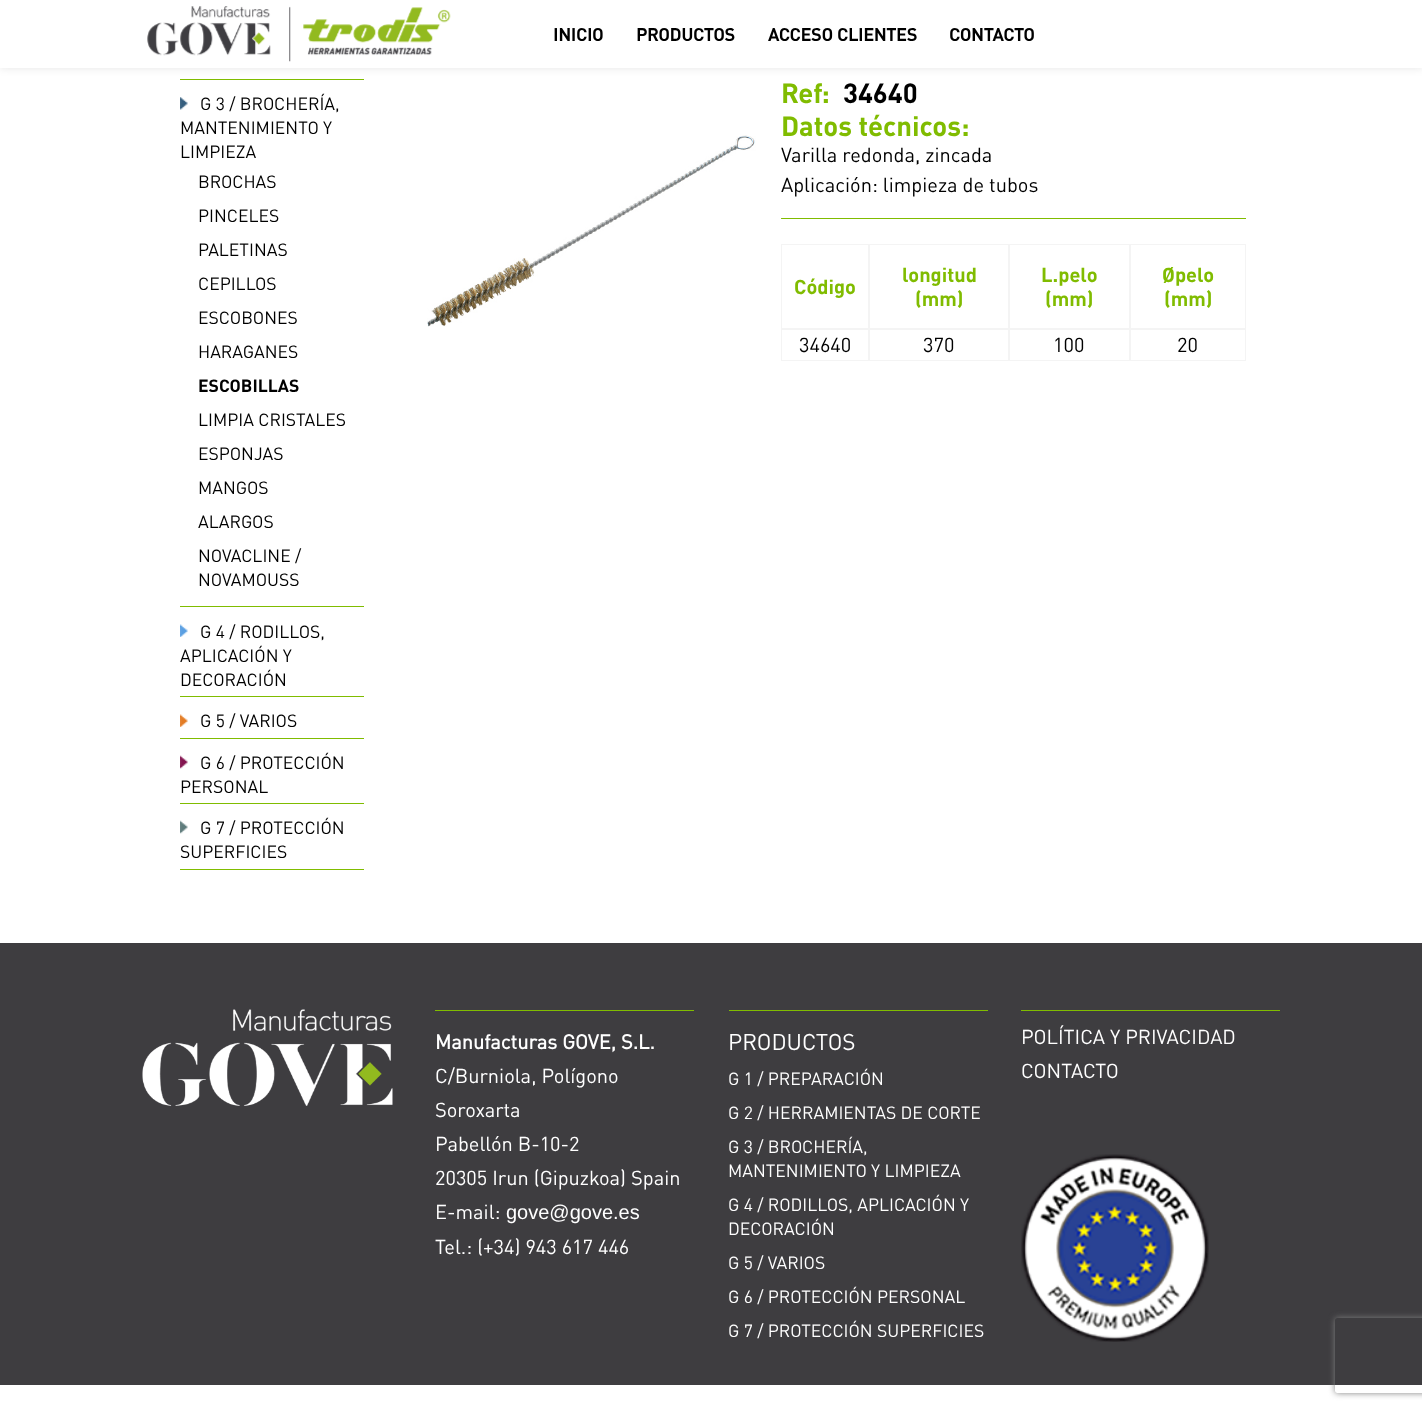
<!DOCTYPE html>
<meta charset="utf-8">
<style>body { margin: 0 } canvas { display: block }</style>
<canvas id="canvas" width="1422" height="1409"></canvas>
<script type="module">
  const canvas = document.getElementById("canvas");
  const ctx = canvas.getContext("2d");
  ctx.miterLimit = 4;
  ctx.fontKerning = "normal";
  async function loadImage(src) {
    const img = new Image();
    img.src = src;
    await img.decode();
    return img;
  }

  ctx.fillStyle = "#ffffff";
  ctx.fillRect(0, 0, 1422, 1409);
  ctx.fillStyle = "#80bc00";
  ctx.fillRect(180, 79, 184, 1);
  ctx.fillRect(781, 218, 465, 1);
  ctx.font = "20px DIN";
  ctx.fillStyle = "#000000";
  ctx.fillText("Varilla redonda, zincada", 781, 162);
  ctx.fillText("Aplicación: limpieza de tubos", 781, 192);
  ctx.strokeStyle = "#f4f4f4";
  ctx.strokeRect(781.5, 244.5, 87, 84);
  ctx.drawImage(await loadImage("img7.png"), 427, 68, 355, 259);
  ctx.fillStyle = "rgba(0, 0, 0, 0.1)";
  ctx.filter = "blur(4.5px)";
  ctx.beginPath();
  ctx.rect(0, 0, 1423, 68);
  ctx.fill();
  ctx.filter = "none";
  ctx.fillStyle = "#ffffff";
  ctx.fillRect(0, 0, 1422, 68);
  ctx.drawImage(await loadImage("img1.png"), 147, 6, 304, 56);
  ctx.font = "bold 17.5px 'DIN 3'";
  ctx.fillStyle = "#000000";
  ctx.fillText("INICIO", 553, 41);
  ctx.fillText("PRODUCTOS", 636, 41);
  ctx.fillText("ACCESO CLIENTES", 768, 41);
  ctx.fillText("CONTACTO", 949, 41);
  ctx.fillStyle = "#80bc00";
  ctx.fillRect(180, 606, 184, 1);
  ctx.drawImage(await loadImage("img2.png"), 180, 97, 8, 13);
  ctx.font = "17.5px DIN";
  ctx.fillStyle = "#000000";
  ctx.fillText("G 3 / BROCHERÍA,", 200, 110);
  ctx.fillText("MANTENIMIENTO Y", 180, 134);
  ctx.fillText("LIMPIEZA", 180, 158);
  ctx.fillText("BROCHAS", 198, 188);
  ctx.fillText("PINCELES", 198, 222);
  ctx.fillText("PALETINAS", 198, 256);
  ctx.fillText("CEPILLOS", 198, 290);
  ctx.fillText("ESCOBONES", 198, 324);
  ctx.fillText("HARAGANES", 198, 358);
  ctx.font = "bold 17.5px DIN";
  ctx.fillText("ESCOBILLAS", 198, 392);
  ctx.font = "17.5px DIN";
  ctx.fillText("LIMPIA CRISTALES", 198, 426);
  ctx.fillText("ESPONJAS", 198, 460);
  ctx.fillText("MANGOS", 198, 494);
  ctx.fillText("ALARGOS", 198, 528);
  ctx.fillText("NOVACLINE /", 198, 562);
  ctx.fillText("NOVAMOUSS", 198, 586);
  ctx.fillStyle = "#80bc00";
  ctx.fillRect(180, 696, 184, 1);
  ctx.drawImage(await loadImage("img3.png"), 180, 624, 8, 13);
  ctx.fillStyle = "#000000";
  ctx.fillText("G 4 / RODILLOS,", 200, 638);
  ctx.fillText("APLICACIÓN Y", 180, 662);
  ctx.fillText("DECORACIÓN", 180, 686);
  ctx.fillStyle = "#80bc00";
  ctx.fillRect(180, 738, 184, 1);
  ctx.drawImage(await loadImage("img4.png"), 180, 714, 8, 13);
  ctx.fillStyle = "#000000";
  ctx.fillText("G 5 / VARIOS", 200, 727);
  ctx.fillStyle = "#80bc00";
  ctx.fillRect(180, 803, 184, 1);
  ctx.drawImage(await loadImage("img5.png"), 180, 755, 8, 14);
  ctx.fillStyle = "#000000";
  ctx.fillText("G 6 / PROTECCIÓN", 200, 769);
  ctx.fillText("PERSONAL", 180, 793);
  ctx.fillStyle = "#80bc00";
  ctx.fillRect(180, 869, 184, 1);
  ctx.drawImage(await loadImage("img6.png"), 180, 820, 8, 14);
  ctx.fillStyle = "#000000";
  ctx.fillText("G 7 / PROTECCIÓN", 200, 834);
  ctx.fillText("SUPERFICIES", 180, 858);
  ctx.font = "bold 27.5px DIN";
  ctx.fillStyle = "#80bc00";
  ctx.fillText("Ref:", 781, 103);
  ctx.fillStyle = "#000000";
  ctx.fillText("34640", 843, 103);
  ctx.fillStyle = "#80bc00";
  ctx.fillText("Datos técnicos:", 781, 136);
  ctx.font = "bold 20px DIN";
  ctx.fillText("Código", 794, 294);
  ctx.strokeRect(869.5, 244.5, 139, 84);
  ctx.fillText("longitud", 902, 282);
  ctx.fillText("(mm)", 915, 306);
  ctx.strokeRect(1009.5, 244.5, 120, 84);
  ctx.fillText("L.pelo", 1041, 282);
  ctx.fillText("(mm)", 1045, 306);
  ctx.strokeRect(1130.5, 244.5, 115, 84);
  ctx.fillText("Øpelo", 1162, 282);
  ctx.fillText("(mm)", 1164, 306);
  ctx.strokeRect(781.5, 329.5, 87, 31);
  ctx.font = "20px DIN";
  ctx.fillStyle = "#000000";
  ctx.fillText("34640", 799, 352);
  ctx.strokeRect(869.5, 329.5, 139, 31);
  ctx.fillText("370", 923, 352);
  ctx.strokeRect(1009.5, 329.5, 120, 31);
  ctx.fillText("100", 1053, 352);
  ctx.strokeRect(1130.5, 329.5, 115, 31);
  ctx.fillText("20", 1177, 352);
  ctx.fillStyle = "#3e3d40";
  ctx.fillRect(0, 943, 1422, 442);
  ctx.drawImage(await loadImage("img8.png"), 142, 1009, 251, 97);
  ctx.fillStyle = "#80bc00";
  ctx.fillRect(435, 1010, 259, 1);
  ctx.font = "bold 20px 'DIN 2'";
  ctx.fillStyle = "#ffffff";
  ctx.fillText("Manufacturas GOVE, S.L.", 435, 1049);
  ctx.font = "20px DIN";
  ctx.fillText("C/Burniola, Polígono", 435, 1083);
  ctx.fillText("Soroxarta", 435, 1117);
  ctx.fillText("Pabellón B-10-2", 435, 1151);
  ctx.fillText("20305 Irun (Gipuzkoa) Spain", 435, 1185);
  ctx.fillText("E-mail:", 435, 1219);
  ctx.font = "20px Liberation Sans";
  ctx.fillText("gove@gove.es", 506, 1219);
  ctx.font = "20px DIN";
  ctx.fillText("Tel.: (+34) 943 617 446", 435, 1254);
  ctx.fillStyle = "#80bc00";
  ctx.fillRect(729, 1010, 259, 1);
  ctx.font = "22.5px DIN";
  ctx.fillStyle = "#ffffff";
  ctx.fillText("PRODUCTOS", 728, 1050);
  ctx.font = "17.5px DIN";
  ctx.fillText("G 1 / PREPARACIÓN", 728, 1085);
  ctx.fillText("G 2 / HERRAMIENTAS DE CORTE", 728, 1119);
  ctx.fillText("G 3 / BROCHERÍA,", 728, 1153);
  ctx.fillText("MANTENIMIENTO Y LIMPIEZA", 728, 1177);
  ctx.fillText("G 4 / RODILLOS, APLICACIÓN Y", 728, 1211);
  ctx.fillText("DECORACIÓN", 728, 1235);
  ctx.fillText("G 5 / VARIOS", 728, 1269);
  ctx.fillText("G 6 / PROTECCIÓN PERSONAL", 728, 1303);
  ctx.fillText("G 7 / PROTECCIÓN SUPERFICIES", 728, 1337);
  ctx.fillStyle = "#80bc00";
  ctx.fillRect(1021, 1010, 259, 1);
  ctx.font = "20px DIN";
  ctx.fillStyle = "#ffffff";
  ctx.fillText("POLÍTICA Y PRIVACIDAD", 1021, 1044);
  ctx.fillText("CONTACTO", 1021, 1078);
  ctx.drawImage(await loadImage("img9.png"), 1021, 1154, 188, 188);
  ctx.save();
  ctx.beginPath();
  ctx.moveTo(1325, 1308);
  ctx.lineTo(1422, 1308);
  ctx.lineTo(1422, 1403);
  ctx.lineTo(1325, 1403);
  ctx.closePath();
  ctx.moveTo(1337.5, 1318);
  ctx.lineTo(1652.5, 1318);
  ctx.bezierCurveTo(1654, 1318, 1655, 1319, 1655, 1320.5);
  ctx.lineTo(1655, 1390.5);
  ctx.bezierCurveTo(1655, 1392, 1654, 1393, 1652.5, 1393);
  ctx.lineTo(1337.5, 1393);
  ctx.bezierCurveTo(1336, 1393, 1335, 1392, 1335, 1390.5);
  ctx.lineTo(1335, 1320.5);
  ctx.bezierCurveTo(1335, 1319, 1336, 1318, 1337.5, 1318);
  ctx.closePath();
  ctx.clip("evenodd");
  ctx.fillStyle = "#808080";
  ctx.filter = "blur(3px)";
  ctx.beginPath();
  ctx.roundRect(1335, 1318, 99, 75, 2.5);
  ctx.fill();
  ctx.filter = "none";
  ctx.restore();
</script>
